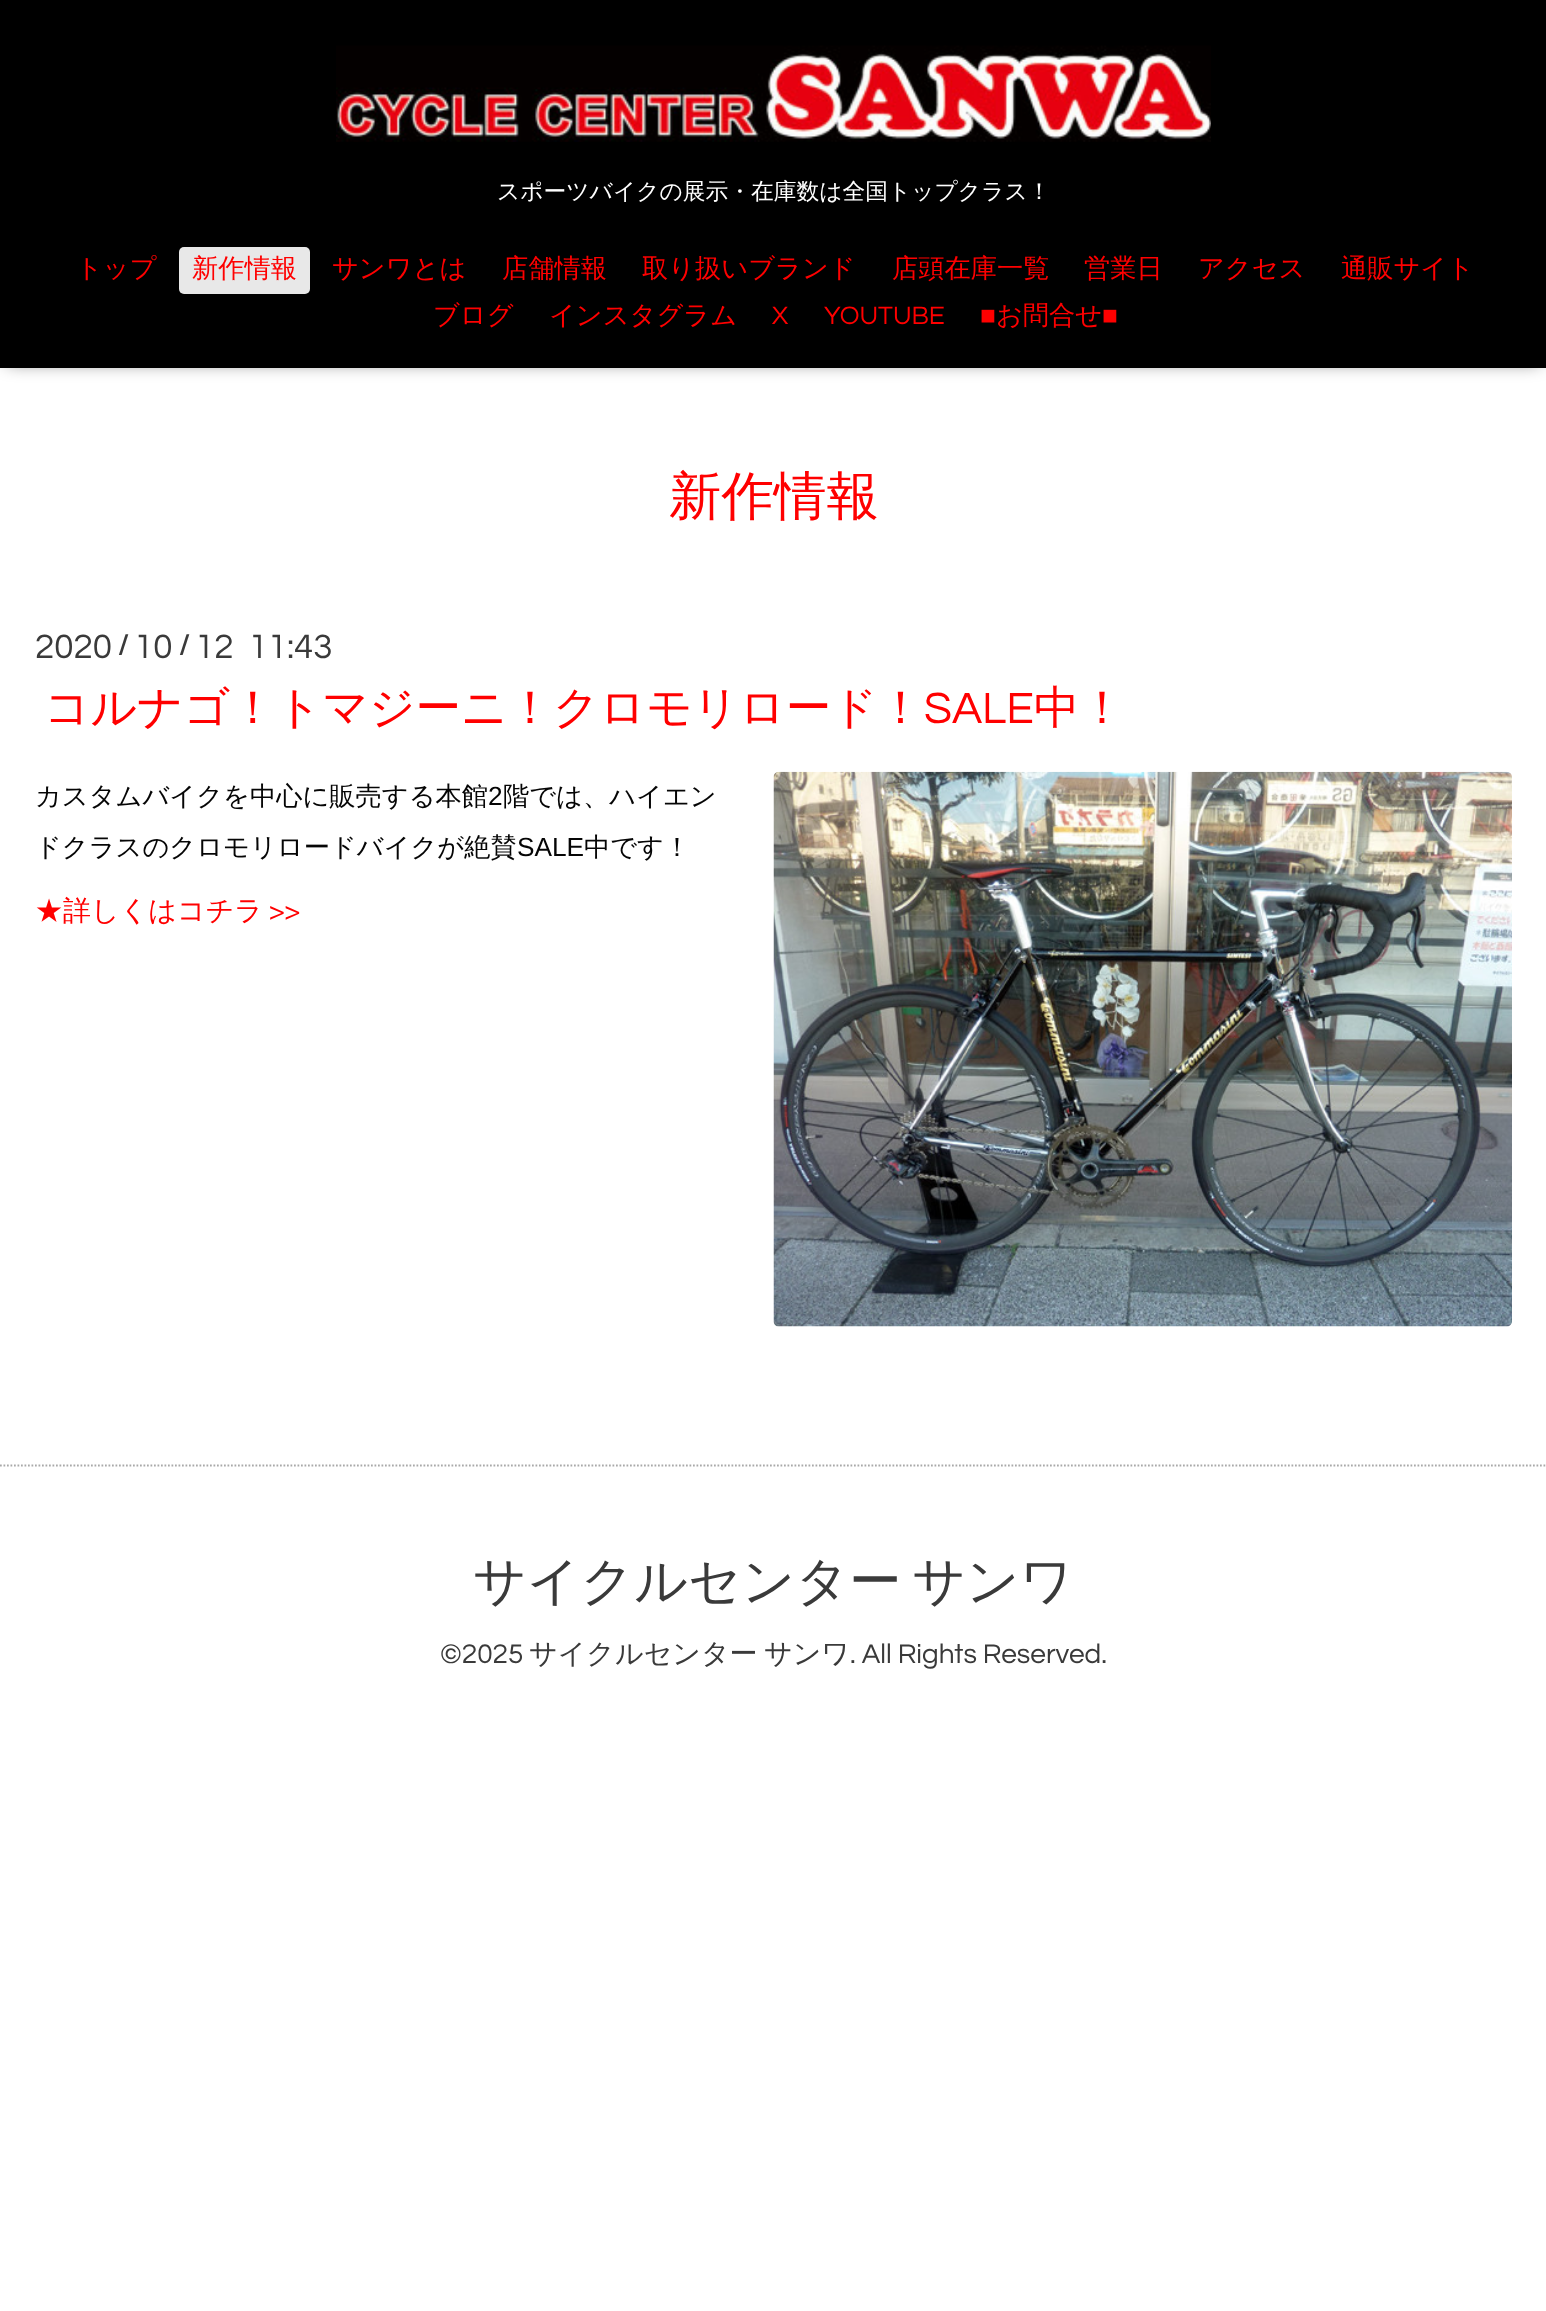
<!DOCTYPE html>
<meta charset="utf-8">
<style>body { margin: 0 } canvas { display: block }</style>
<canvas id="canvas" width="1546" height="2311"></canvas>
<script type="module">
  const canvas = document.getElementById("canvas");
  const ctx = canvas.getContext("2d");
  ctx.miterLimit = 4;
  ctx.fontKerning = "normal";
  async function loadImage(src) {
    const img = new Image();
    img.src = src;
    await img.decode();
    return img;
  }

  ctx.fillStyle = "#ffffff";
  ctx.fillRect(0, 0, 1546, 2311);
  ctx.fillStyle = "rgba(0, 0, 0, 0.6)";
  ctx.filter = "blur(9px)";
  ctx.beginPath();
  ctx.rect(7, 9, 1533, 353);
  ctx.fill();
  ctx.filter = "none";
  ctx.fillStyle = "#000000";
  ctx.fillRect(0, 0, 1546, 368);
  ctx.drawImage(await loadImage("img1.png"), 336, 45, 875, 97);
  ctx.font = "500 22.75px WenQuanYi Zen Hei";
  ctx.fillStyle = "#ffffff";
  ctx.fillText("スポーツバイクの展示・在庫数は全国トップクラス！", 497, 199);
  ctx.font = "500 26.25px WenQuanYi Zen Hei";
  ctx.fillStyle = "#ff0000";
  ctx.fillText("トップ", 76, 277);
  ctx.fillStyle = "#e8e8e8";
  ctx.beginPath();
  ctx.roundRect(179, 247, 131, 47, 5);
  ctx.fill();
  ctx.fillStyle = "#ff0000";
  ctx.fillText("新作情報", 192, 277);
  ctx.fillText("サンワとは", 332, 277);
  ctx.fillText("店舗情報", 502, 277);
  ctx.fillText("取り扱いブランド", 642, 277);
  ctx.fillText("店頭在庫一覧", 892, 277);
  ctx.fillText("営業日", 1084, 277);
  ctx.fillText("アクセス", 1198, 277);
  ctx.fillText("通販サイト", 1341, 277);
  ctx.fillText("ブログ", 433, 324);
  ctx.fillText("インスタグラム", 549, 324);
  ctx.font = "26.25px Questrial";
  ctx.fillText("X", 772, 324);
  ctx.fillText("YOUTUBE", 824, 324);
  ctx.font = "26.25px Liberation Sans";
  ctx.fillText("■", 980, 324);
  ctx.font = "500 26.25px WenQuanYi Zen Hei";
  ctx.fillText("お問合せ", 996, 324);
  ctx.font = "26.25px Liberation Sans";
  ctx.fillText("■", 1102, 324);
  ctx.font = "500 52.5px WenQuanYi Zen Hei";
  ctx.fillText("新作情報", 669, 514);
  ctx.font = "35px Questrial";
  ctx.fillStyle = "#3a3a3a";
  ctx.fillText("2020", 35, 658);
  ctx.font = "bold 28px Questrial";
  ctx.fillText("/", 118, 654);
  ctx.font = "35px Questrial";
  ctx.fillText("10", 134, 658);
  ctx.font = "bold 28px Questrial";
  ctx.fillText("/", 179, 654);
  ctx.font = "35px Questrial";
  ctx.fillText("12  11:43", 195, 658);
  ctx.font = "500 45.5px WenQuanYi Zen Hei";
  ctx.fillStyle = "#ff0000";
  ctx.fillText("コルナゴ！トマジーニ！クロモリロード！", 44, 723);
  ctx.font = "45.5px Questrial";
  ctx.fillText("SALE", 924, 723);
  ctx.font = "500 45.5px WenQuanYi Zen Hei";
  ctx.fillText("中！", 1034, 723);
  ctx.font = "500 26.25px WenQuanYi Zen Hei";
  ctx.fillStyle = "#050505";
  ctx.fillText("カスタムバイクを中心に販売する本館", 35, 805);
  ctx.font = "26.25px Liberation Sans";
  ctx.fillText("2", 488, 805);
  ctx.font = "500 26.25px WenQuanYi Zen Hei";
  ctx.fillText("階では、ハイエン", 503, 805);
  ctx.fillText("ドクラスのクロモリロードバイクが絶賛", 35, 856);
  ctx.font = "26.25px Liberation Sans";
  ctx.fillText("SALE", 517, 856);
  ctx.font = "500 26.25px WenQuanYi Zen Hei";
  ctx.fillText("中です！", 584, 856);
  ctx.font = "500 28px WenQuanYi Zen Hei";
  ctx.fillStyle = "#ff0000";
  ctx.fillText("★詳しくはコチラ", 35, 920);
  ctx.font = "28px Questrial";
  ctx.fillText(">>", 269, 920);
  ctx.drawImage(await loadImage("img2.png"), 773, 771, 739, 556);
  ctx.beginPath();
  ctx.moveTo(0, 1465.5);
  ctx.lineTo(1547, 1465.5);
  ctx.strokeStyle = "#a9a9a9";
  ctx.lineWidth = 1.8;
  ctx.setLineDash([1.75, 1.75]);
  ctx.stroke();
  ctx.wordSpacing = "-5px";
  ctx.font = "500 52.5px WenQuanYi Zen Hei";
  ctx.fillStyle = "#3a3a3a";
  ctx.fillText("サイクルセンター サンワ", 473, 1599);
  ctx.wordSpacing = "0px";
  ctx.font = "28px Questrial";
  ctx.fillText("©2025", 440, 1663);
  ctx.wordSpacing = "-2px";
  ctx.font = "500 28px WenQuanYi Zen Hei";
  ctx.fillText("サイクルセンター サンワ", 529, 1663);
  ctx.wordSpacing = "0px";
  ctx.font = "28px Questrial";
  ctx.fillText(". All Rights Reserved.", 850, 1663);
</script>
